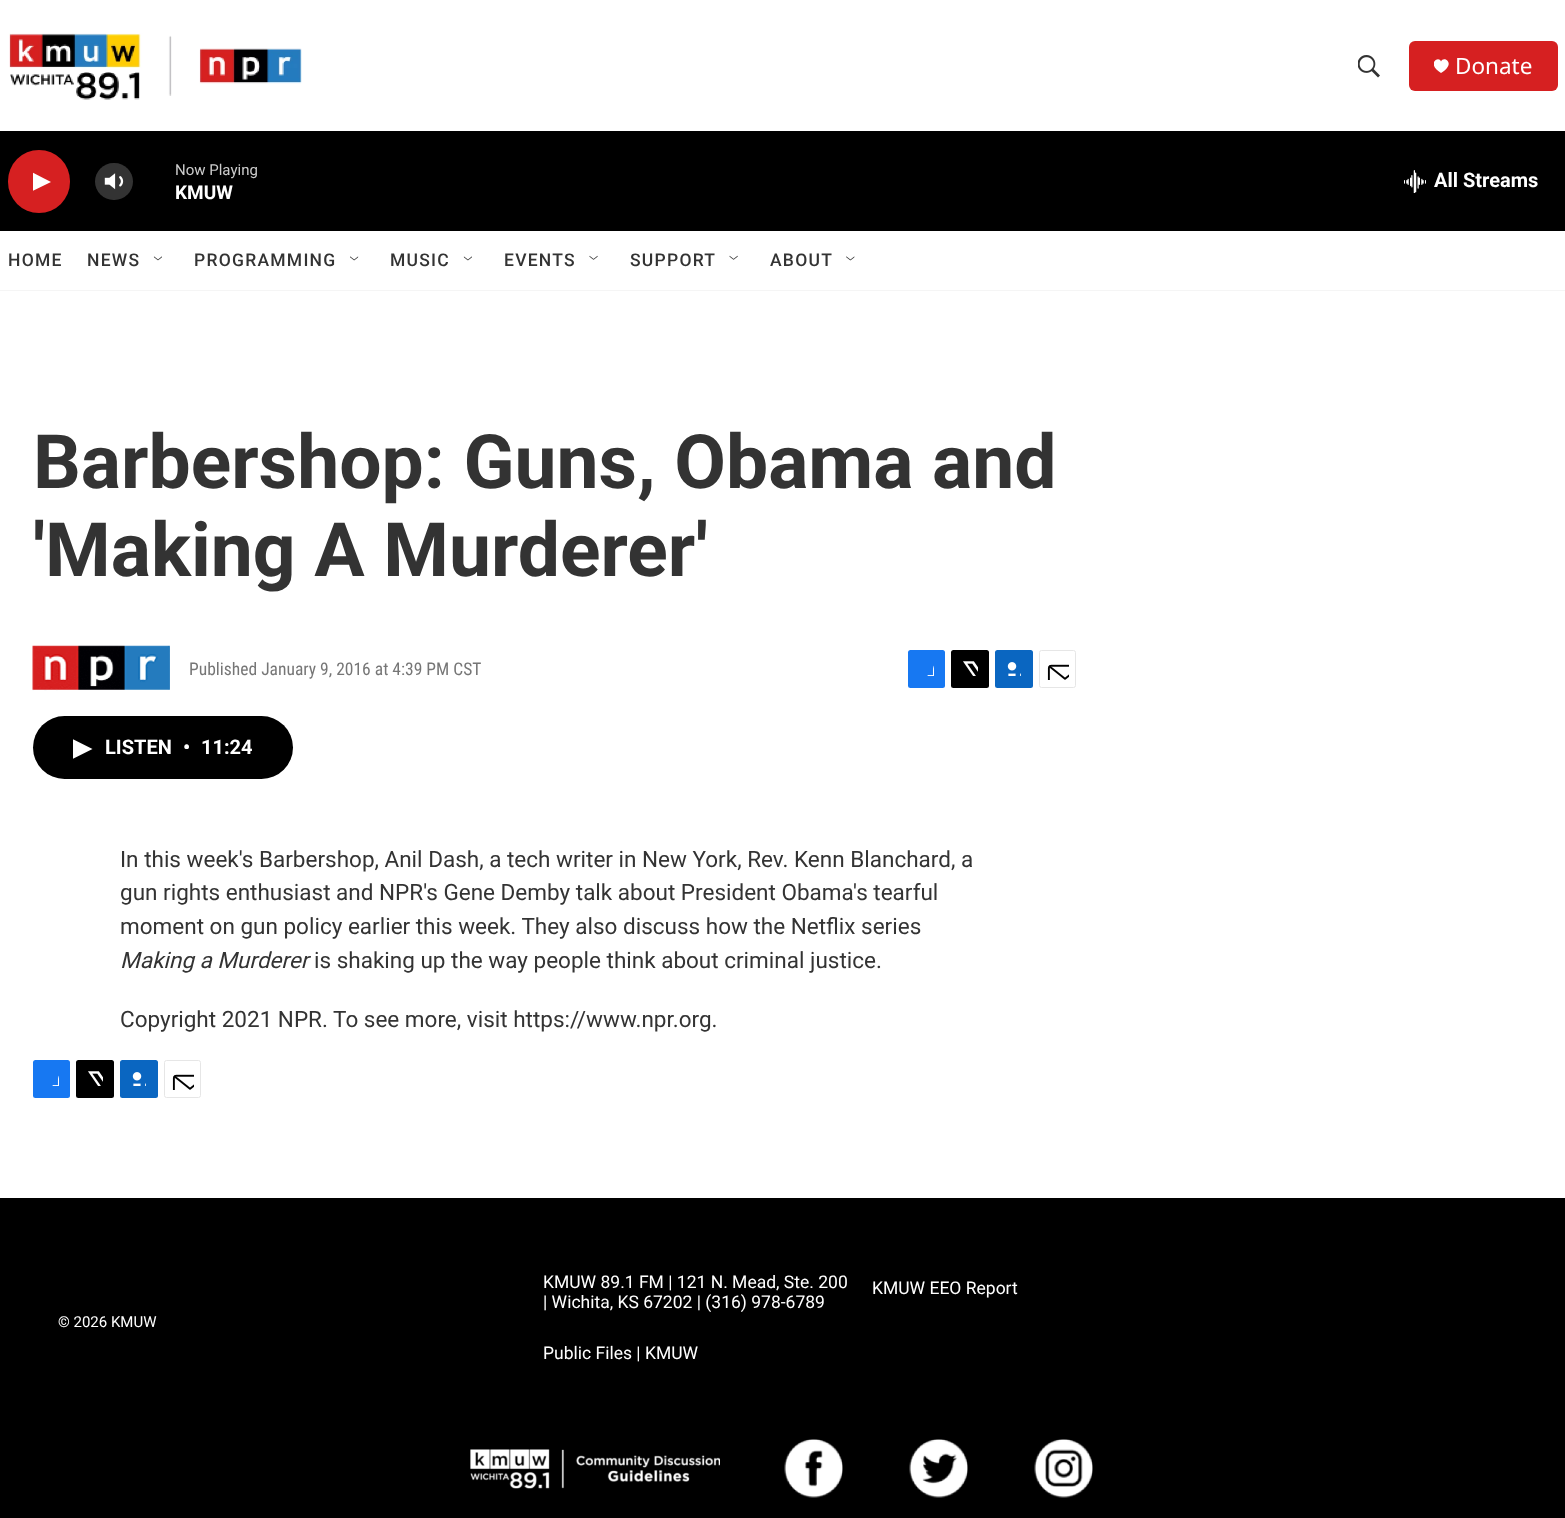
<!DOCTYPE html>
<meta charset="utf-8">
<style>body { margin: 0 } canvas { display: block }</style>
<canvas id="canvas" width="1565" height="1518"></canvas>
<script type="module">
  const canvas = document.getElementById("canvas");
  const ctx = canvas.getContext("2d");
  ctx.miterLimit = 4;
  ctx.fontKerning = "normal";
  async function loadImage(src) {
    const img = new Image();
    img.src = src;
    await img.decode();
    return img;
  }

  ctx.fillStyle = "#ffffff";
  ctx.fillRect(0, 0, 1565, 1518);
  ctx.fillStyle = "#f5f5f5";
  ctx.fillRect(0, 290, 1565, 1);
  ctx.drawImage(await loadImage("img1.png"), 9, 33, 293, 67);
  ctx.drawImage(await loadImage("img2.png"), 1358, 55, 22, 23);
  ctx.fillStyle = "#d62021";
  ctx.beginPath();
  ctx.roundRect(1409, 41, 149, 50, 6);
  ctx.fill();
  ctx.save();
  ctx.beginPath();
  ctx.rect(1434, 59, 15, 15);
  ctx.clip();
  ctx.fillStyle = "#ffffff";
  ctx.beginPath();
  ctx.moveTo(1441, 61.5);
  ctx.bezierCurveTo(1439, 55, 1425.5, 63.5, 1441, 73);
  ctx.bezierCurveTo(1457, 63.5, 1443.5, 55, 1441, 61.5);
  ctx.closePath();
  ctx.fill();
  ctx.restore();
  ctx.font = "22.5px Noto Sans";
  ctx.fillStyle = "#ffffff";
  ctx.fillText("Donate", 1455, 74);
  ctx.fillStyle = "#000000";
  ctx.fillRect(0, 131, 1565, 100);
  ctx.fillStyle = "#d62021";
  ctx.beginPath();
  ctx.roundRect(8, 150, 62, 63, 31);
  ctx.fill();
  ctx.save();
  ctx.beginPath();
  ctx.rect(33, 170, 18, 24);
  ctx.clip();
  ctx.fillStyle = "#ffffff";
  ctx.beginPath();
  ctx.moveTo(32.5, 172.5);
  ctx.lineTo(51, 182);
  ctx.lineTo(32.5, 191);
  ctx.closePath();
  ctx.fill();
  ctx.restore();
  ctx.drawImage(await loadImage("img3.png"), 104, 173, 20, 17);
  ctx.fillStyle = "rgba(255, 255, 255, 0.2)";
  ctx.beginPath();
  ctx.roundRect(95, 163, 38, 37, 18.5);
  ctx.fill();
  ctx.font = "15px Roboto";
  ctx.fillStyle = "#cccccc";
  ctx.fillText("Now Playing", 175, 175);
  ctx.font = "bold 19px 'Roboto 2'";
  ctx.fillStyle = "#ffffff";
  ctx.fillText("KMUW", 175, 199);
  ctx.drawImage(await loadImage("img4.png"), 1404, 170, 22, 23);
  ctx.font = "bold 20px 'Roboto 2'";
  ctx.fillText("All Streams", 1434, 187);
  ctx.letterSpacing = "1.25px";
  ctx.font = "500 17.5px Roboto";
  ctx.fillStyle = "#333333";
  ctx.fillText("HOME", 8, 266);
  ctx.fillText("NEWS", 87, 266);
  ctx.drawImage(await loadImage("img5.png"), 153, 256, 9, 5);
  ctx.fillText("PROGRAMMING", 194, 266);
  ctx.drawImage(await loadImage("img6.png"), 350, 256, 9, 5);
  ctx.fillText("MUSIC", 390, 266);
  ctx.drawImage(await loadImage("img7.png"), 463, 256, 9, 5);
  ctx.fillText("EVENTS", 504, 266);
  ctx.drawImage(await loadImage("img8.png"), 589, 255, 9, 5);
  ctx.fillText("SUPPORT", 630, 266);
  ctx.drawImage(await loadImage("img9.png"), 729, 255, 9, 5);
  ctx.fillText("ABOUT", 770, 266);
  ctx.drawImage(await loadImage("img10.png"), 846, 256, 9, 5);
  ctx.letterSpacing = "0px";
  ctx.font = "bold 75px Roboto";
  ctx.fillText("Barbershop: Guns, Obama and", 33, 488);
  ctx.fillText("'Making A Murderer'", 33, 576);
  ctx.drawImage(await loadImage("img11.png"), 32, 645, 138, 46);
  ctx.font = "17.5px Roboto Condensed";
  ctx.fillStyle = "#767676";
  ctx.fillText("Published January 9, 2016 at 4:39 PM CST", 189, 675);
  ctx.fillStyle = "#1778f2";
  ctx.beginPath();
  ctx.roundRect(908, 650, 37, 38, 2.5);
  ctx.fill();
  ctx.drawImage(await loadImage("img12.png"), 927, 665, 7, 11);
  ctx.fillStyle = "#000000";
  ctx.beginPath();
  ctx.roundRect(951, 650, 38, 38, 2.5);
  ctx.fill();
  ctx.drawImage(await loadImage("img13.png"), 963, 661, 15, 15);
  ctx.fillStyle = "#0a66c1";
  ctx.beginPath();
  ctx.roundRect(995, 650, 38, 38, 2.5);
  ctx.fill();
  ctx.drawImage(await loadImage("img14.png"), 1007, 662, 14, 14);
  ctx.beginPath();
  ctx.roundRect(1039.5, 650.5, 36, 37, 2);
  ctx.strokeStyle = "#e6e6e6";
  ctx.stroke();
  ctx.drawImage(await loadImage("img15.png"), 1047, 664, 22, 16);
  ctx.fillStyle = "#000000";
  ctx.beginPath();
  ctx.roundRect(33, 716, 260, 63, 31.5);
  ctx.fill();
  ctx.save();
  ctx.beginPath();
  ctx.rect(73, 739, 20, 20);
  ctx.clip();
  ctx.fillStyle = "#ffffff";
  ctx.beginPath();
  ctx.moveTo(72.5, 739);
  ctx.lineTo(92.5, 749);
  ctx.lineTo(72.5, 759);
  ctx.closePath();
  ctx.fill();
  ctx.restore();
  ctx.font = "bold 20px 'Roboto 2'";
  ctx.fillStyle = "#ffffff";
  ctx.fillText("LISTEN", 105, 754);
  ctx.fillText("•", 183, 754);
  ctx.fillText("11:24", 201, 754);
  ctx.font = "22.5px Roboto";
  ctx.fillStyle = "#333333";
  ctx.fillText("In this week's Barbershop, Anil Dash, a tech writer in New York, Rev. Kenn Blanchard, a", 120, 867);
  ctx.fillText("gun rights enthusiast and NPR's Gene Demby talk about President Obama's tearful", 120, 900);
  ctx.fillText("moment on gun policy earlier this week. They also discuss how the Netflix series", 120, 934);
  ctx.font = "italic 22.5px Roboto";
  ctx.fillText("Making a Murderer", 120, 968);
  ctx.font = "22.5px Roboto";
  ctx.fillText("is shaking up the way people think about criminal justice.", 314, 968);
  ctx.fillText("Copyright 2021 NPR. To see more, visit https://www.npr.org.", 120, 1027);
  ctx.fillStyle = "#1778f2";
  ctx.beginPath();
  ctx.roundRect(33, 1060, 37, 38, 2.5);
  ctx.fill();
  ctx.drawImage(await loadImage("img12.png"), 52, 1075, 7, 11);
  ctx.fillStyle = "#000000";
  ctx.beginPath();
  ctx.roundRect(76, 1060, 38, 38, 2.5);
  ctx.fill();
  ctx.drawImage(await loadImage("img13.png"), 88, 1071, 15, 15);
  ctx.fillStyle = "#0a66c1";
  ctx.beginPath();
  ctx.roundRect(120, 1060, 38, 38, 2.5);
  ctx.fill();
  ctx.drawImage(await loadImage("img14.png"), 132, 1072, 14, 14);
  ctx.beginPath();
  ctx.roundRect(164.5, 1060.5, 36, 37, 2);
  ctx.stroke();
  ctx.drawImage(await loadImage("img15.png"), 172, 1074, 22, 16);
  ctx.fillStyle = "#000000";
  ctx.fillRect(0, 1198, 1565, 320);
  ctx.font = "15px Roboto";
  ctx.fillStyle = "#ffffff";
  ctx.fillText("© 2026 KMUW", 58, 1327);
  ctx.font = "17.5px Roboto";
  ctx.fillText("KMUW 89.1 FM | 121 N. Mead, Ste. 200", 543, 1288);
  ctx.fillText("| Wichita, KS 67202 | (316) 978-6789", 543, 1308);
  ctx.fillText("KMUW EEO Report", 872, 1294);
  ctx.fillText("Public Files | KMUW", 543, 1359);
  ctx.drawImage(await loadImage("img16.png"), 470, 1449, 250, 40);
  ctx.drawImage(await loadImage("img17.png"), 784, 1439, 59, 59);
  ctx.drawImage(await loadImage("img18.png"), 909, 1439, 59, 59);
  ctx.drawImage(await loadImage("img19.png"), 1034, 1439, 59, 59);
</script>
